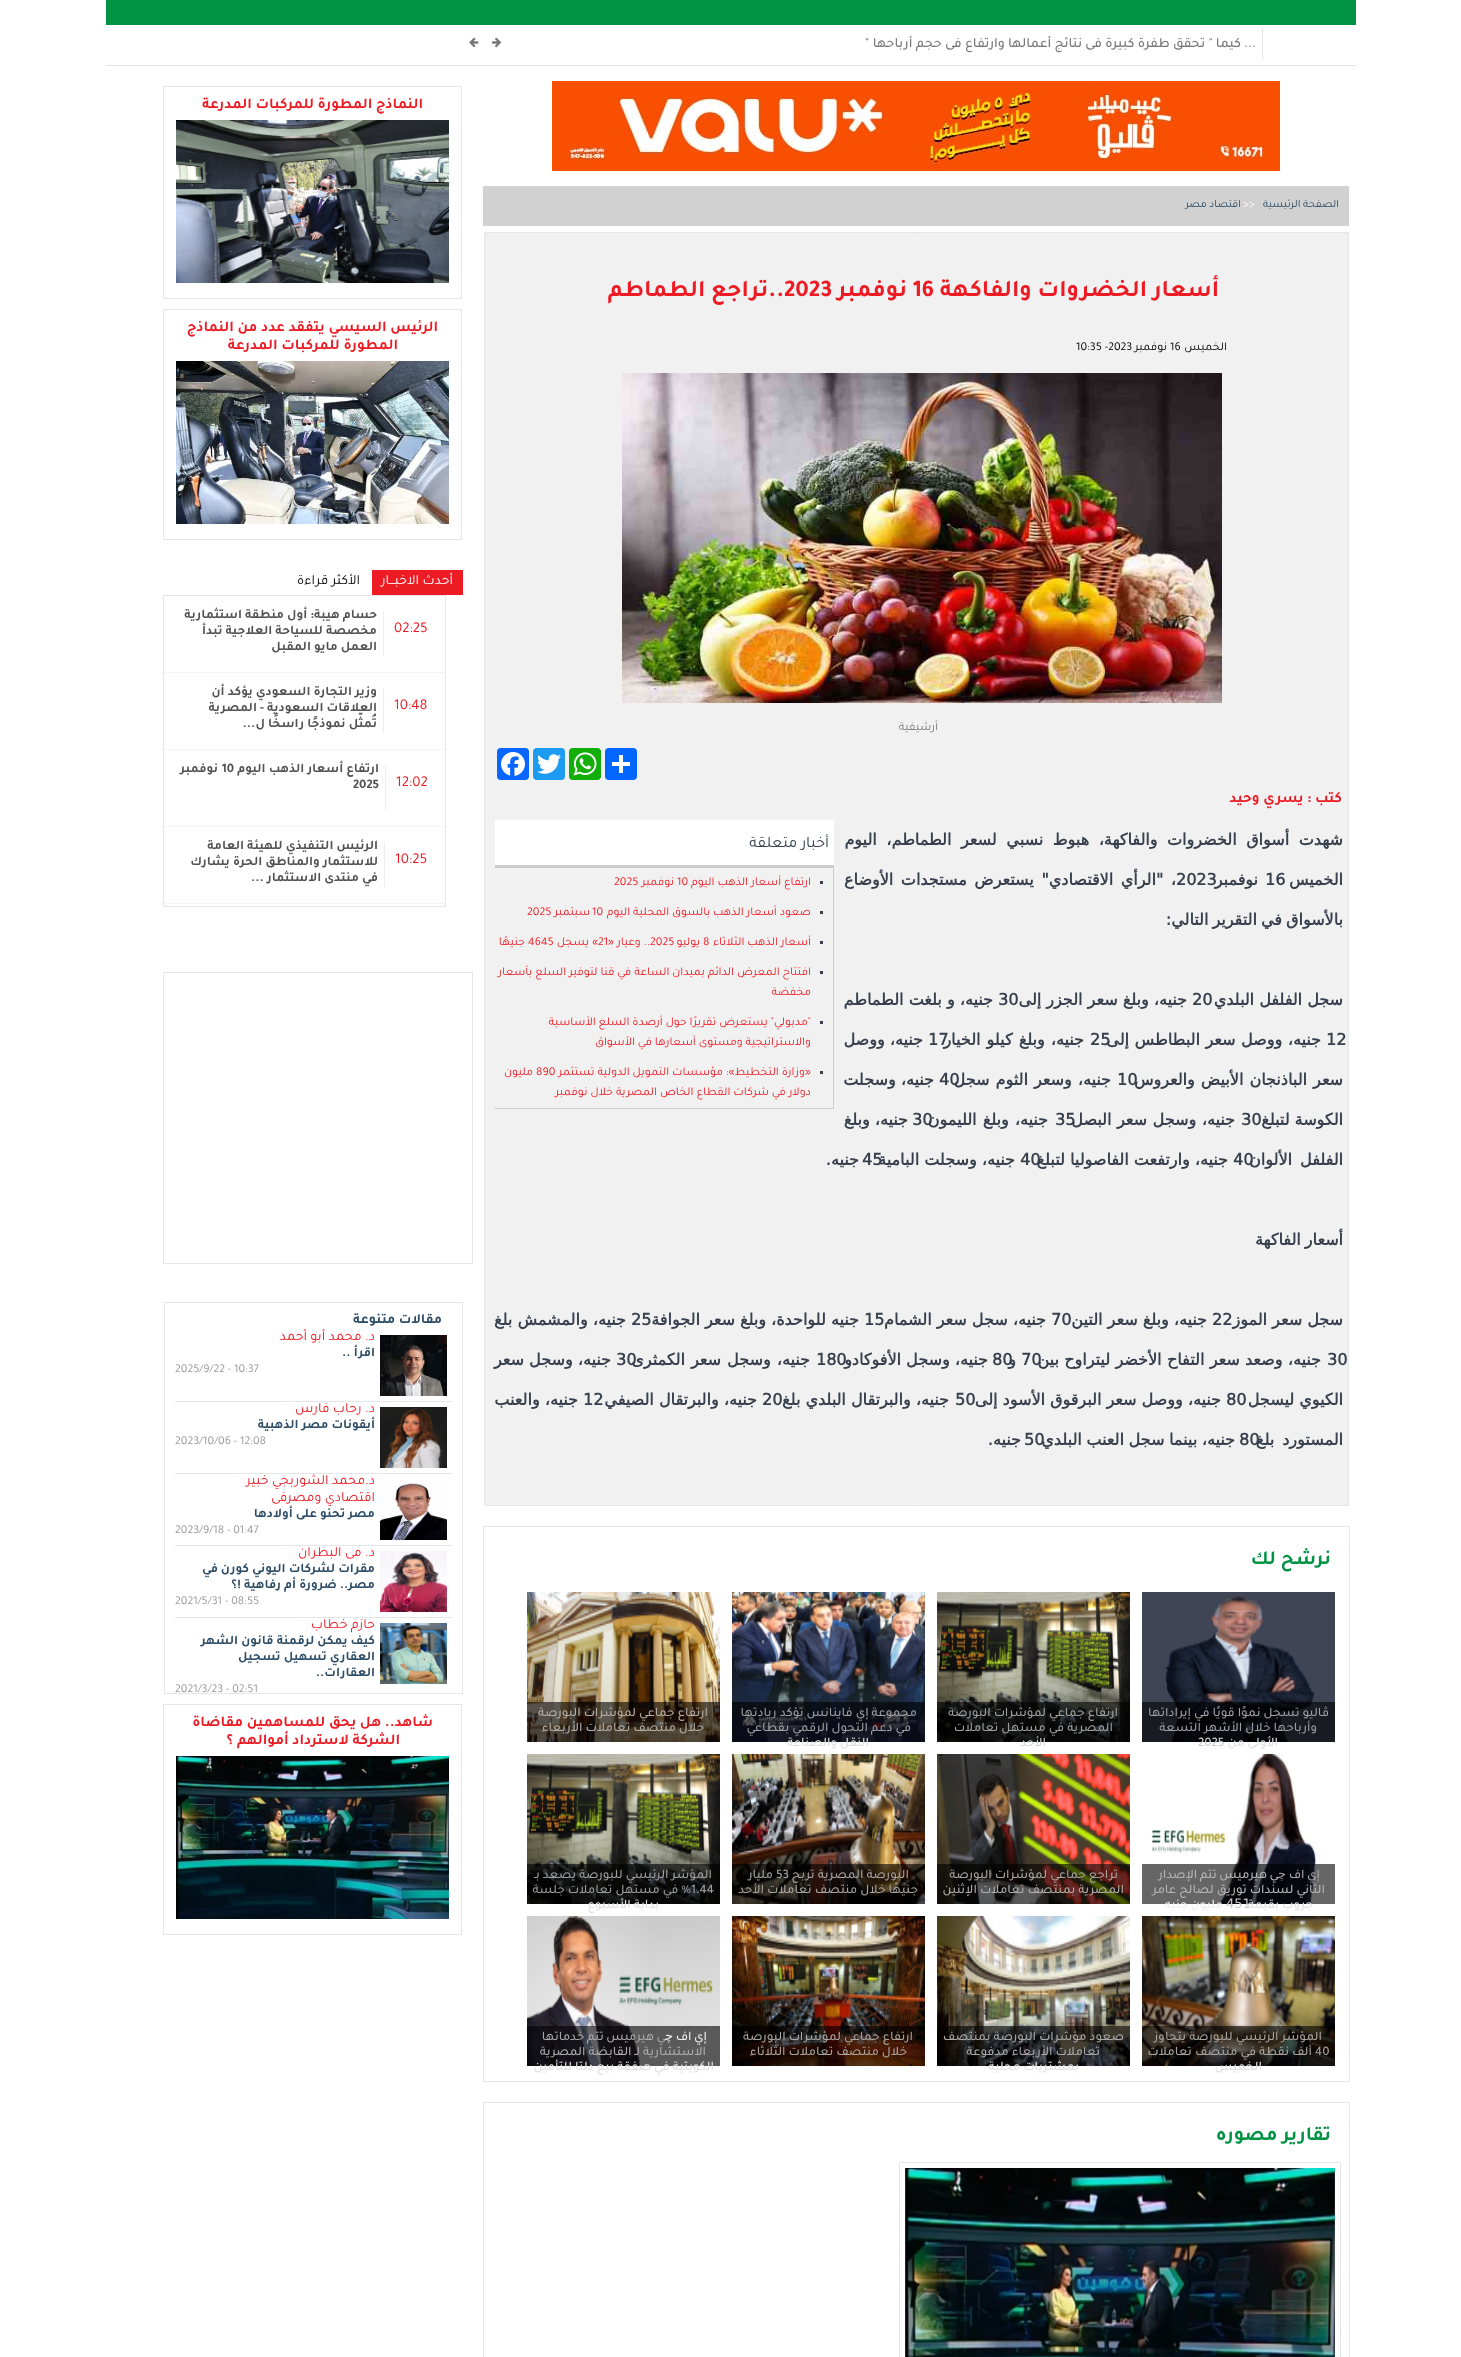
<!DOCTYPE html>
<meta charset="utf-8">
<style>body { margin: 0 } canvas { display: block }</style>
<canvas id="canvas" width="1461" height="2357"></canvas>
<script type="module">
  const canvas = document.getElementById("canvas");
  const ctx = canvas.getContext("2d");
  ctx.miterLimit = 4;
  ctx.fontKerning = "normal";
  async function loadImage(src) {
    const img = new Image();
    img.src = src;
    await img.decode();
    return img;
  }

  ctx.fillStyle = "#ffffff";
  ctx.fillRect(0, 0, 1461, 2357);
  ctx.fillStyle = "#009343";
  ctx.fillRect(106, 0, 1250, 25);
  ctx.fillStyle = "#e3e3e3";
  ctx.fillRect(106, 65, 1250, 1);
  ctx.fillRect(1262, 28, 1, 31);
  ctx.direction = "rtl";
  ctx.font = "500 14px Tajawal";
  ctx.fillStyle = "#777777";
  ctx.fillText("كيما \" تحقق طفرة كبيرة فى نتائج أعمالها وارتفاع فى حجم أرباحها", 1241, 47);
  ctx.direction = "ltr";
  ctx.fillText("\"", 865, 47);
  ctx.fillText("...", 1244, 47);
  ctx.drawImage(await loadImage("img1.png"), 492, 37, 9, 11);
  ctx.drawImage(await loadImage("img2.png"), 469, 37, 10, 11);
  ctx.drawImage(await loadImage("img3.png"), 552, 81, 728, 90);
  ctx.fillStyle = "#d1d1d1";
  ctx.fillRect(483, 186, 866, 40);
  ctx.direction = "rtl";
  ctx.font = "11px Tajawal";
  ctx.fillStyle = "#274761";
  ctx.fillText("الصفحة الرئيسية", 1339, 207);
  ctx.direction = "ltr";
  ctx.fillStyle = "#ffffff";
  ctx.fillText(">", 1249, 207);
  ctx.fillText(">", 1243, 207);
  ctx.direction = "rtl";
  ctx.fillStyle = "#274761";
  ctx.fillText("اقتصاد مصر", 1241, 207);
  ctx.fillStyle = "#f1f1f1";
  ctx.beginPath();
  ctx.rect(484.5, 232.5, 864, 1273);
  ctx.fill();
  ctx.strokeStyle = "#e6e6e6";
  ctx.stroke();
  ctx.font = "bold 24px Tajawal";
  ctx.fillStyle = "#ed1b24";
  ctx.fillText("أسعار الخضروات والفاكهة", 1219, 296);
  ctx.direction = "ltr";
  ctx.fillText("16", 913, 296);
  ctx.direction = "rtl";
  ctx.fillText("نوفمبر", 907, 296);
  ctx.direction = "ltr";
  ctx.fillText("2023", 784, 296);
  ctx.direction = "rtl";
  ctx.fillText("..تراجع الطماطم", 784, 296);
  ctx.font = "12px Tajawal";
  ctx.fillStyle = "#000000";
  ctx.fillText("الخميس", 1227, 350);
  ctx.direction = "ltr";
  ctx.fillText("16", 1170, 350);
  ctx.direction = "rtl";
  ctx.fillText("نوفمبر", 1167, 350);
  ctx.direction = "ltr";
  ctx.fillText("10:35 -2023", 1076, 350);
  ctx.drawImage(await loadImage("img4.png"), 622, 373, 600, 330);
  ctx.direction = "rtl";
  ctx.fillStyle = "#777777";
  ctx.fillText("أرشيفية", 938, 730);
  ctx.fillStyle = "#0166ff";
  ctx.beginPath();
  ctx.roundRect(605, 748, 32, 32, 4);
  ctx.fill();
  ctx.fillStyle = "#ffffff";
  ctx.fillRect(619, 755, 4, 18);
  ctx.fillRect(612, 762, 18, 4);
  ctx.fillStyle = "#12af0a";
  ctx.beginPath();
  ctx.roundRect(569, 748, 32, 32, 4);
  ctx.fill();
  ctx.drawImage(await loadImage("img5.png"), 573, 752, 24, 24);
  ctx.fillStyle = "#1d9bf0";
  ctx.beginPath();
  ctx.roundRect(533, 748, 32, 32, 4);
  ctx.fill();
  ctx.drawImage(await loadImage("img6.png"), 537, 754, 24, 20);
  ctx.fillStyle = "#0866ff";
  ctx.beginPath();
  ctx.roundRect(497, 748, 32, 32, 4);
  ctx.fill();
  ctx.drawImage(await loadImage("img7.png"), 501, 752, 24, 24);
  ctx.font = "bold 15px Tajawal";
  ctx.fillStyle = "#ed1b24";
  ctx.fillText("كتب : يسري وحيد", 1342, 802);
  ctx.wordSpacing = "4.5px";
  ctx.font = "bold 16px DejaVu Sans";
  ctx.fillStyle = "#38404e";
  ctx.fillText("شهدت أسواق الخضروات والفاكهة، هبوط نسبي لسعر الطماطم، اليوم", 1343, 845);
  ctx.fillStyle = "#ffffff";
  ctx.fillRect(495, 820, 339, 45);
  ctx.fillStyle = "#cccccc";
  ctx.fillRect(495, 865, 339, 3);
  ctx.wordSpacing = "0px";
  ctx.font = "16px Tajawal";
  ctx.fillStyle = "#38404e";
  ctx.fillText("أخبار متعلقة", 829, 847);
  ctx.fillStyle = "#cccccc";
  ctx.fillRect(833, 868, 1, 241);
  ctx.fillRect(495, 1108, 339, 1);
  ctx.fillStyle = "#38404e";
  ctx.fillRect(820, 881, 3, 3);
  ctx.font = "12px Tajawal";
  ctx.fillStyle = "#ed1b24";
  ctx.fillText("ارتفاع أسعار الذهب اليوم", 811, 885);
  ctx.direction = "ltr";
  ctx.fillText("10", 677, 885);
  ctx.direction = "rtl";
  ctx.fillText("نوفمبر", 674, 885);
  ctx.direction = "ltr";
  ctx.fillText("2025", 614, 885);
  ctx.fillStyle = "#38404e";
  ctx.fillRect(820, 911, 3, 3);
  ctx.direction = "rtl";
  ctx.fillStyle = "#ed1b24";
  ctx.fillText("صعود أسعار الذهب بالسوق المحلية اليوم", 811, 915);
  ctx.direction = "ltr";
  ctx.fillText("10", 592, 915);
  ctx.direction = "rtl";
  ctx.fillText("سبتمبر", 590, 915);
  ctx.direction = "ltr";
  ctx.fillText("2025", 527, 915);
  ctx.fillStyle = "#38404e";
  ctx.fillRect(820, 941, 3, 3);
  ctx.direction = "rtl";
  ctx.fillStyle = "#ed1b24";
  ctx.fillText("أسعار الذهب الثلاثاء", 811, 945);
  ctx.direction = "ltr";
  ctx.fillText("8", 703, 945);
  ctx.direction = "rtl";
  ctx.fillText("يوليو", 700, 945);
  ctx.direction = "ltr";
  ctx.fillText("2025", 650, 945);
  ctx.direction = "rtl";
  ctx.fillText(".. وعيار «", 650, 945);
  ctx.direction = "ltr";
  ctx.fillText("21", 598, 945);
  ctx.direction = "rtl";
  ctx.fillText("» يسجل", 598, 945);
  ctx.direction = "ltr";
  ctx.fillText("4645", 528, 945);
  ctx.direction = "rtl";
  ctx.fillText("جنيهًا", 525, 945);
  ctx.fillStyle = "#38404e";
  ctx.fillRect(820, 971, 3, 3);
  ctx.fillStyle = "#ed1b24";
  ctx.fillText("افتتاح المعرض الدائم بميدان الساعة في قنا لتوفير السلع بأسعار", 811, 975);
  ctx.fillText("مخفضة", 811, 995);
  ctx.fillStyle = "#38404e";
  ctx.fillRect(820, 1021, 3, 3);
  ctx.fillStyle = "#ed1b24";
  ctx.fillText("\"مدبولي\" يستعرض تقريرًا حول أرصدة السلع الأساسية", 811, 1025);
  ctx.fillText("والاستراتيجية ومستوى أسعارها في الأسواق", 811, 1045);
  ctx.fillStyle = "#38404e";
  ctx.fillRect(820, 1071, 3, 3);
  ctx.fillStyle = "#ed1b24";
  ctx.fillText("«وزارة التخطيط»: مؤسسات التمويل الدولية تستثمر", 811, 1075);
  ctx.direction = "ltr";
  ctx.fillText("890", 536, 1075);
  ctx.direction = "rtl";
  ctx.fillText("مليون", 533, 1075);
  ctx.fillText("دولار في شركات القطاع الخاص المصرية خلال نوفمبر", 811, 1095);
  ctx.font = "bold 16px DejaVu Sans";
  ctx.fillStyle = "#38404e";
  ctx.fillText("الخميس", 1343, 885);
  ctx.direction = "ltr";
  ctx.fillText("16", 1265, 885);
  ctx.fillText("2023", 1176, 885);
  ctx.direction = "rtl";
  ctx.fillText("نوفمبر", 1258, 885);
  ctx.wordSpacing = "2.5px";
  ctx.fillText("، \"الرأي الاقتصادي\" يستعرض مستجدات الأوضاع", 1176, 885);
  ctx.wordSpacing = "-1px";
  ctx.fillText("بالأسواق في التقرير التالي:", 1343, 925);
  ctx.wordSpacing = "0px";
  ctx.fillText("سجل الفلفل البلدي", 1343, 1005);
  ctx.direction = "ltr";
  ctx.fillText("20", 1192, 1005);
  ctx.direction = "rtl";
  ctx.fillText("جنيه، وبلغ سعر الجزر إلى", 1187, 1005);
  ctx.direction = "ltr";
  ctx.fillText("30", 998, 1005);
  ctx.direction = "rtl";
  ctx.fillText("جنيه، و بلغت الطماطم", 993, 1005);
  ctx.direction = "ltr";
  ctx.fillText("12", 1326, 1045);
  ctx.fillText("25", 1090, 1045);
  ctx.wordSpacing = "0.5px";
  ctx.direction = "rtl";
  ctx.fillText("جنيه، ووصل سعر البطاطس إلى", 1321, 1045);
  ctx.wordSpacing = "0px";
  ctx.direction = "ltr";
  ctx.fillText("17", 928, 1045);
  ctx.wordSpacing = "1px";
  ctx.direction = "rtl";
  ctx.fillText("جنيه، وبلغ كيلو الخيار", 1084, 1045);
  ctx.wordSpacing = "0px";
  ctx.fillText("جنيه، ووصل", 923, 1045);
  ctx.direction = "ltr";
  ctx.fillText("10", 1117, 1085);
  ctx.wordSpacing = "1px";
  ctx.direction = "rtl";
  ctx.fillText("سعر الباذنجان الأبيض والعروس", 1343, 1085);
  ctx.wordSpacing = "0px";
  ctx.direction = "ltr";
  ctx.fillText("40", 939, 1085);
  ctx.wordSpacing = "1px";
  ctx.direction = "rtl";
  ctx.fillText("جنيه، وسعر الثوم سجل", 1111, 1085);
  ctx.wordSpacing = "0px";
  ctx.fillText("جنيه، وسجلت", 934, 1085);
  ctx.fillText("الكوسة لتبلغ", 1343, 1125);
  ctx.direction = "ltr";
  ctx.fillText("30", 1241, 1125);
  ctx.fillText("35", 1055, 1125);
  ctx.wordSpacing = "0.5px";
  ctx.direction = "rtl";
  ctx.fillText("جنيه، وسجل سعر البصل", 1235, 1125);
  ctx.wordSpacing = "0px";
  ctx.direction = "ltr";
  ctx.fillText("30", 912, 1125);
  ctx.wordSpacing = "1px";
  ctx.direction = "rtl";
  ctx.fillText("جنيه، وبلغ الليمون", 1048, 1125);
  ctx.wordSpacing = "0px";
  ctx.fillText("جنيه، وبلغ", 908, 1125);
  ctx.direction = "ltr";
  ctx.fillText("40", 1233, 1165);
  ctx.wordSpacing = "3px";
  ctx.direction = "rtl";
  ctx.fillText("الفلفل الألوان", 1343, 1165);
  ctx.wordSpacing = "0px";
  ctx.direction = "ltr";
  ctx.fillText("40", 1020, 1165);
  ctx.direction = "rtl";
  ctx.fillText("جنيه، وارتفعت الفاصوليا لتبلغ", 1228, 1165);
  ctx.direction = "ltr";
  ctx.fillText("45", 862, 1165);
  ctx.direction = "rtl";
  ctx.fillText("جنيه، وسجلت البامية", 1015, 1165);
  ctx.fillText("جنيه.", 859, 1165);
  ctx.wordSpacing = "-1px";
  ctx.fillText("أسعار الفاكهة", 1343, 1245);
  ctx.wordSpacing = "0px";
  ctx.fillText("سجل سعر الموز", 1343, 1325);
  ctx.direction = "ltr";
  ctx.fillText("22", 1212, 1325);
  ctx.direction = "rtl";
  ctx.fillText("جنيه، وبلغ سعر التين", 1207, 1325);
  ctx.direction = "ltr";
  ctx.fillText("70", 1051, 1325);
  ctx.direction = "rtl";
  ctx.fillText("جنيه، سجل سعر الشمام", 1046, 1325);
  ctx.direction = "ltr";
  ctx.fillText("15", 864, 1325);
  ctx.direction = "rtl";
  ctx.fillText("جنيه للواحدة، وبلغ سعر الجوافة", 859, 1325);
  ctx.direction = "ltr";
  ctx.fillText("25", 631, 1325);
  ctx.direction = "rtl";
  ctx.fillText("جنيه، والمشمش بلغ", 626, 1325);
  ctx.direction = "ltr";
  ctx.fillText("30", 1327, 1365);
  ctx.fillText("70", 1021, 1365);
  ctx.wordSpacing = "0.25px";
  ctx.direction = "rtl";
  ctx.fillText("جنيه، وصعد سعر التفاح الأخضر ليتراوح بين", 1321, 1365);
  ctx.wordSpacing = "0px";
  ctx.direction = "ltr";
  ctx.fillText("80", 992, 1365);
  ctx.fillText("180", 816, 1365);
  ctx.direction = "rtl";
  ctx.fillText("جنيه، وسجل الأفوكادو", 988, 1365);
  ctx.direction = "ltr";
  ctx.fillText("30", 616, 1365);
  ctx.wordSpacing = "1px";
  ctx.direction = "rtl";
  ctx.fillText("جنيه، وسجل سعر الكمثرى", 810, 1365);
  ctx.wordSpacing = "0px";
  ctx.fillText("جنيه، وسجل سعر", 611, 1365);
  ctx.fillText("و", 1016, 1365);
  ctx.fillText("الكيوي ليسجل", 1343, 1405);
  ctx.direction = "ltr";
  ctx.fillText("80", 1226, 1405);
  ctx.direction = "rtl";
  ctx.fillText("جنيه، ووصل سعر البرقوق الأسود إلى", 1221, 1405);
  ctx.direction = "ltr";
  ctx.fillText("50", 955, 1405);
  ctx.direction = "rtl";
  ctx.fillText("جنيه، والبرتقال البلدي بلغ", 949, 1405);
  ctx.direction = "ltr";
  ctx.fillText("20", 762, 1405);
  ctx.direction = "rtl";
  ctx.fillText("جنيه، والبرتقال الصيفي", 757, 1405);
  ctx.direction = "ltr";
  ctx.fillText("12", 583, 1405);
  ctx.direction = "rtl";
  ctx.fillText("جنيه، والعنب", 578, 1405);
  ctx.direction = "ltr";
  ctx.fillText("80", 1239, 1445);
  ctx.wordSpacing = "3px";
  ctx.direction = "rtl";
  ctx.fillText("المستورد بلغ", 1343, 1445);
  ctx.wordSpacing = "0px";
  ctx.direction = "ltr";
  ctx.fillText("50", 1024, 1445);
  ctx.wordSpacing = "-0.5px";
  ctx.direction = "rtl";
  ctx.fillText("جنيه، بينما سجل العنب البلدي", 1235, 1445);
  ctx.wordSpacing = "0px";
  ctx.fillText("جنيه.", 1021, 1445);
  ctx.strokeRect(483.5, 1526.5, 866, 555);
  ctx.font = "bold 20px Tajawal";
  ctx.fillStyle = "#009343";
  ctx.fillText("نرشح لك", 1331, 1564);
  ctx.drawImage(await loadImage("img8.png"), 1142, 1592, 193, 150);
  ctx.fillStyle = "rgba(0, 0, 0, 0.6)";
  ctx.fillRect(1142, 1702, 193, 40);
  ctx.font = "500 13px Tajawal";
  ctx.fillStyle = "#9e9fa1";
  ctx.fillText("ڤاليو تسجل نموًا قويًا في إيراداتها", 1329, 1716);
  ctx.fillText("وأرباحها خلال الأشهر التسعة", 1317, 1731);
  ctx.fillStyle = "#e0e0e1";
  ctx.fillText("الأولى من", 1278, 1746);
  ctx.direction = "ltr";
  ctx.fillStyle = "#cacacb";
  ctx.fillText("2025", 1198, 1746);
  ctx.drawImage(await loadImage("img9.png"), 937, 1592, 193, 150);
  ctx.fillStyle = "rgba(0, 0, 0, 0.6)";
  ctx.fillRect(937, 1702, 193, 40);
  ctx.direction = "rtl";
  ctx.fillStyle = "#9e9fa1";
  ctx.fillText("ارتفاع جماعي لمؤشرات البورصة", 1118, 1716);
  ctx.fillText("المصرية في مستهل تعاملات", 1113, 1731);
  ctx.fillStyle = "#d4d4d4";
  ctx.fillText("الأحد", 1046, 1746);
  ctx.drawImage(await loadImage("img10.png"), 732, 1592, 193, 150);
  ctx.fillStyle = "rgba(0, 0, 0, 0.6)";
  ctx.fillRect(732, 1702, 193, 40);
  ctx.fillStyle = "#9e9fa1";
  ctx.fillText("مجموعة إي فاينانس تؤكد ريادتها", 917, 1716);
  ctx.fillText("في دعم التحول الرقمي بقطاعي", 911, 1731);
  ctx.fillStyle = "#e0e0e1";
  ctx.fillText("النقل والصناعة", 869, 1746);
  ctx.drawImage(await loadImage("img11.png"), 527, 1592, 193, 150);
  ctx.fillStyle = "rgba(0, 0, 0, 0.6)";
  ctx.fillRect(527, 1702, 193, 40);
  ctx.fillStyle = "#b1aca7";
  ctx.fillText("ارتفاع جماعي لمؤشرات البورصة", 708, 1716);
  ctx.fillText("خلال منتصف تعاملات الأربعاء", 704, 1731);
  ctx.drawImage(await loadImage("img12.png"), 1151, 1754, 166, 150);
  ctx.fillStyle = "rgba(0, 0, 0, 0.6)";
  ctx.fillRect(1142, 1864, 193, 40);
  ctx.wordSpacing = "-0.5px";
  ctx.fillStyle = "#a7a7aa";
  ctx.fillText("إي اف", 1320, 1878);
  ctx.wordSpacing = "0px";
  ctx.font = "13px DejaVu Sans";
  ctx.fillStyle = "#999999";
  ctx.fillText("چ‍", 1286, 1878);
  ctx.wordSpacing = "-0.5px";
  ctx.font = "500 13px Tajawal";
  ctx.fillStyle = "#b5b5b6";
  ctx.fillText("‍ي هيرميس تتم الإصدار", 1278, 1878);
  ctx.wordSpacing = "0px";
  ctx.fillText("الثاني لسندات توريق لصالح عامر", 1325, 1893);
  ctx.direction = "ltr";
  ctx.font = "13px DejaVu Sans";
  ctx.fillStyle = "#cacacb";
  ctx.fillText("451", 1226, 1908);
  ctx.direction = "rtl";
  ctx.font = "500 13px Tajawal";
  ctx.fillStyle = "#e0e0e1";
  ctx.fillText("جروب بقيمة", 1313, 1908);
  ctx.fillStyle = "#eeeeee";
  ctx.fillText("مليون جنيه", 1223, 1908);
  ctx.drawImage(await loadImage("img13.png"), 937, 1754, 193, 150);
  ctx.fillStyle = "rgba(0, 0, 0, 0.6)";
  ctx.fillRect(937, 1864, 193, 40);
  ctx.fillStyle = "#a8a39f";
  ctx.fillText("تراجع جماعي لمؤشرات البورصة", 1118, 1878);
  ctx.fillStyle = "#b1aca7";
  ctx.fillText("المصرية بمنتصف تعاملات الإثنين", 1124, 1893);
  ctx.drawImage(await loadImage("img14.png"), 732, 1754, 193, 150);
  ctx.fillStyle = "rgba(0, 0, 0, 0.6)";
  ctx.fillRect(732, 1864, 193, 40);
  ctx.fillStyle = "#a8a39f";
  ctx.fillText("البورصة المصرية تربح", 909, 1878);
  ctx.direction = "ltr";
  ctx.fillStyle = "#9e9fa1";
  ctx.fillText("53", 776, 1878);
  ctx.direction = "rtl";
  ctx.fillText("مليار", 773, 1878);
  ctx.fillStyle = "#a8a39f";
  ctx.fillText("جنيهًا خلال منتصف تعاملات الأحد", 918, 1893);
  ctx.drawImage(await loadImage("img15.png"), 527, 1754, 193, 150);
  ctx.fillStyle = "rgba(0, 0, 0, 0.6)";
  ctx.fillRect(527, 1864, 193, 40);
  ctx.fillStyle = "#9e9fa1";
  ctx.fillText("المؤشر الرئيسي للبورصة يصعد بـ", 712, 1878);
  ctx.direction = "ltr";
  ctx.fillText("1.44", 691, 1893);
  ctx.direction = "rtl";
  ctx.fillStyle = "#999999";
  ctx.fillText("% في مستهل تعاملات جلسة", 691, 1893);
  ctx.fillStyle = "#e0e0e1";
  ctx.fillText("بداية الأسبوع", 659, 1908);
  ctx.drawImage(await loadImage("img16.png"), 1142, 1916, 193, 150);
  ctx.fillStyle = "rgba(0, 0, 0, 0.6)";
  ctx.fillRect(1142, 2026, 193, 40);
  ctx.fillStyle = "#a8a39f";
  ctx.fillText("المؤشر الرئيسي للبورصة يتجاوز", 1322, 2040);
  ctx.direction = "ltr";
  ctx.fillStyle = "#9f9c9b";
  ctx.fillText("40", 1315, 2055);
  ctx.direction = "rtl";
  ctx.fillStyle = "#a8a39f";
  ctx.fillText("ألف نقطة في منتصف تعاملات", 1312, 2055);
  ctx.fillStyle = "#e0e0e1";
  ctx.fillText("الخميس", 1262, 2070);
  ctx.drawImage(await loadImage("img17.png"), 937, 1916, 193, 150);
  ctx.fillStyle = "rgba(0, 0, 0, 0.6)";
  ctx.fillRect(937, 2026, 193, 40);
  ctx.fillStyle = "#a7a7aa";
  ctx.fillText("صعود مؤشرات البورصة بمنتصف", 1124, 2040);
  ctx.fillText("تعاملات الأربعاء مدفوعة", 1100, 2055);
  ctx.fillStyle = "#e0e0e1";
  ctx.fillText("بمشتريات محلية", 1079, 2070);
  ctx.drawImage(await loadImage("img18.png"), 732, 1916, 193, 150);
  ctx.fillStyle = "rgba(0, 0, 0, 0.6)";
  ctx.fillRect(732, 2026, 193, 40);
  ctx.fillStyle = "#a8a39f";
  ctx.fillText("ارتفاع جماعي لمؤشرات البورصة", 913, 2040);
  ctx.fillText("خلال منتصف تعاملات الثلاثاء", 907, 2055);
  ctx.drawImage(await loadImage("img19.png"), 527, 1916, 193, 150);
  ctx.fillStyle = "rgba(0, 0, 0, 0.6)";
  ctx.fillRect(527, 2026, 193, 40);
  ctx.wordSpacing = "-0.5px";
  ctx.fillStyle = "#eeeeee";
  ctx.fillText("إي اف", 707, 2040);
  ctx.wordSpacing = "0px";
  ctx.font = "13px DejaVu Sans";
  ctx.fillText("چ‍", 673, 2040);
  ctx.wordSpacing = "-0.5px";
  ctx.font = "500 13px Tajawal";
  ctx.fillStyle = "#a7a7aa";
  ctx.fillText("‍ي هيرميس تتم خدماتها", 665, 2040);
  ctx.wordSpacing = "0px";
  ctx.fillStyle = "#adadae";
  ctx.fillText("الاستشارية لـ القابضة المصرية", 706, 2055);
  ctx.fillStyle = "#e0e0e1";
  ctx.fillText("الكويتية في صفقة بيع دلتا للتأمين", 714, 2070);
  ctx.strokeRect(483.5, 2102.5, 866, 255);
  ctx.font = "bold 20px Tajawal";
  ctx.fillStyle = "#009343";
  ctx.fillText("تقارير مصوره", 1331, 2140);
  ctx.strokeRect(899.5, 2162.5, 441, 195);
  ctx.drawImage(await loadImage("img20.png"), 905, 2168, 430, 189);
  ctx.strokeRect(163.5, 86.5, 298, 212);
  ctx.font = "bold 15px Tajawal";
  ctx.fillStyle = "#ed1b24";
  ctx.fillText("النماذج المطورة للمركبات المدرعة", 423, 108);
  ctx.drawImage(await loadImage("img21.png"), 176, 120, 273, 163);
  ctx.strokeRect(163.5, 309.5, 298, 230);
  ctx.fillText("الرئيس السيسي يتفقد عدد من النماذج", 438, 331);
  ctx.fillText("المطورة للمركبات المدرعة", 398, 349);
  ctx.drawImage(await loadImage("img22.png"), 176, 361, 273, 163);
  ctx.fillRect(372, 570, 91, 25);
  ctx.font = "14px Tajawal";
  ctx.fillStyle = "#ffffff";
  ctx.fillText("أحدث الاخبـــار", 453, 584);
  ctx.fillStyle = "#000000";
  ctx.fillText("الأكثر قراءة", 360, 584);
  ctx.strokeRect(163.5, 595.5, 282, 311);
  ctx.beginPath();
  ctx.moveTo(164, 672.5);
  ctx.lineTo(445, 672.5);
  ctx.strokeStyle = "#ebebeb";
  ctx.setLineDash([1, 1]);
  ctx.stroke();
  ctx.fillStyle = "#eeeeee";
  ctx.fillRect(383, 611, 1, 45);
  ctx.direction = "ltr";
  ctx.font = "15px Tajawal";
  ctx.fillStyle = "#ed1b24";
  ctx.fillText("02:25", 394, 632);
  ctx.direction = "rtl";
  ctx.font = "bold 13px Tajawal";
  ctx.fillStyle = "#525252";
  ctx.fillText("حسام هيبة: أول منطقة استثمارية", 377, 618);
  ctx.fillText("مخصصة للسياحة العلاجية تبدأ", 377, 634);
  ctx.fillText("العمل مايو المقبل", 377, 650);
  ctx.beginPath();
  ctx.moveTo(164, 749.5);
  ctx.lineTo(445, 749.5);
  ctx.stroke();
  ctx.fillStyle = "#eeeeee";
  ctx.fillRect(383, 688, 1, 45);
  ctx.direction = "ltr";
  ctx.font = "15px Tajawal";
  ctx.fillStyle = "#ed1b24";
  ctx.fillText("10:48", 394, 709);
  ctx.direction = "rtl";
  ctx.font = "bold 13px Tajawal";
  ctx.fillStyle = "#525252";
  ctx.fillText("وزير التجارة السعودي يؤكد أن", 377, 695);
  ctx.fillText("العلاقات السعودية - المصرية", 377, 711);
  ctx.fillText("تُمثّل نموذجًا راسخًا ل...", 377, 727);
  ctx.beginPath();
  ctx.moveTo(164, 826.5);
  ctx.lineTo(445, 826.5);
  ctx.stroke();
  ctx.fillStyle = "#eeeeee";
  ctx.fillRect(385, 765, 1, 45);
  ctx.direction = "ltr";
  ctx.font = "15px Tajawal";
  ctx.fillStyle = "#ed1b24";
  ctx.fillText("12:02", 396, 786);
  ctx.direction = "rtl";
  ctx.font = "bold 13px Tajawal";
  ctx.fillStyle = "#525252";
  ctx.fillText("ارتفاع أسعار الذهب اليوم", 379, 772);
  ctx.direction = "ltr";
  ctx.fillText("10", 222, 772);
  ctx.direction = "rtl";
  ctx.fillText("نوفمبر", 218, 772);
  ctx.direction = "ltr";
  ctx.fillText("2025", 353, 788);
  ctx.beginPath();
  ctx.moveTo(164, 903.5);
  ctx.lineTo(445, 903.5);
  ctx.stroke();
  ctx.fillStyle = "#eeeeee";
  ctx.fillRect(384, 842, 1, 45);
  ctx.font = "15px Tajawal";
  ctx.fillStyle = "#ed1b24";
  ctx.fillText("10:25", 395, 863);
  ctx.direction = "rtl";
  ctx.font = "bold 13px Tajawal";
  ctx.fillStyle = "#525252";
  ctx.fillText("الرئيس التنفيذي للهيئة العامة", 378, 849);
  ctx.fillText("للاستثمار والمناطق الحرة يشارك", 378, 865);
  ctx.fillText("في منتدى الاستثمار ...", 378, 881);
  ctx.strokeStyle = "#e6e6e6";
  ctx.setLineDash([]);
  ctx.strokeRect(163.5, 972.5, 309, 291);
  ctx.strokeRect(164.5, 1302.5, 298, 391);
  ctx.font = "bold 14px Tajawal";
  ctx.fillStyle = "#2d4c65";
  ctx.fillText("مقالات متنوعة", 442, 1323);
  ctx.fillStyle = "#e6e6e6";
  ctx.fillRect(175, 1401, 277, 1);
  ctx.drawImage(await loadImage("img23.png"), 380, 1335, 67, 61);
  ctx.font = "14px Tajawal";
  ctx.fillStyle = "#ed1b24";
  ctx.fillText("د. محمد أبو أحمد", 375, 1340);
  ctx.font = "bold 13px Tajawal";
  ctx.fillStyle = "#2d4c65";
  ctx.fillText("اقرأ ..", 375, 1356);
  ctx.direction = "ltr";
  ctx.font = "12px Tajawal";
  ctx.fillStyle = "#999999";
  ctx.fillText("2025/9/22 - 10:37", 175, 1372);
  ctx.fillStyle = "#e6e6e6";
  ctx.fillRect(175, 1473, 277, 1);
  ctx.drawImage(await loadImage("img24.png"), 380, 1407, 67, 61);
  ctx.direction = "rtl";
  ctx.font = "14px Tajawal";
  ctx.fillStyle = "#ed1b24";
  ctx.fillText("د. رحاب فارس", 375, 1412);
  ctx.font = "bold 13px Tajawal";
  ctx.fillStyle = "#2d4c65";
  ctx.fillText("أيقونات مصر الذهبية", 375, 1428);
  ctx.direction = "ltr";
  ctx.font = "12px Tajawal";
  ctx.fillStyle = "#999999";
  ctx.fillText("2023/10/06 - 12:08", 175, 1444);
  ctx.fillStyle = "#e6e6e6";
  ctx.fillRect(175, 1545, 277, 1);
  ctx.drawImage(await loadImage("img25.png"), 380, 1483, 67, 57);
  ctx.direction = "rtl";
  ctx.font = "14px Tajawal";
  ctx.fillStyle = "#ed1b24";
  ctx.fillText("د.محمد الشوربجي خبير", 375, 1484);
  ctx.fillText("اقتصادي ومصرفى", 375, 1501);
  ctx.font = "bold 13px Tajawal";
  ctx.fillStyle = "#2d4c65";
  ctx.fillText("مصر تحنو على أولادها", 375, 1517);
  ctx.direction = "ltr";
  ctx.font = "12px Tajawal";
  ctx.fillStyle = "#999999";
  ctx.fillText("2023/9/18 - 01:47", 175, 1533);
  ctx.fillStyle = "#e6e6e6";
  ctx.fillRect(175, 1617, 277, 1);
  ctx.drawImage(await loadImage("img26.png"), 380, 1551, 67, 61);
  ctx.direction = "rtl";
  ctx.font = "14px Tajawal";
  ctx.fillStyle = "#ed1b24";
  ctx.fillText("د. مى البطران", 375, 1556);
  ctx.font = "bold 13px Tajawal";
  ctx.fillStyle = "#2d4c65";
  ctx.fillText("مقرات لشركات اليوني كورن", 375, 1572);
  ctx.fillText("في", 218, 1572);
  ctx.fillText("مصر.. ضرورة أم رفاهية !؟", 375, 1588);
  ctx.direction = "ltr";
  ctx.font = "12px Tajawal";
  ctx.fillStyle = "#999999";
  ctx.fillText("2021/5/31 - 08:55", 175, 1604);
  ctx.drawImage(await loadImage("img27.png"), 380, 1623, 67, 61);
  ctx.direction = "rtl";
  ctx.font = "14px Tajawal";
  ctx.fillStyle = "#ed1b24";
  ctx.fillText("حازم خطاب", 375, 1628);
  ctx.font = "bold 13px Tajawal";
  ctx.fillStyle = "#2d4c65";
  ctx.fillText("كيف يمكن لرقمنة قانون الشهر", 375, 1644);
  ctx.fillText("العقاري تسهيل تسجيل", 375, 1660);
  ctx.fillText("العقارات..", 375, 1676);
  ctx.direction = "ltr";
  ctx.font = "12px Tajawal";
  ctx.fillStyle = "#999999";
  ctx.fillText("2021/3/23 - 02:51", 175, 1692);
  ctx.strokeRect(163.5, 1704.5, 298, 230);
  ctx.direction = "rtl";
  ctx.font = "bold 15px Tajawal";
  ctx.fillStyle = "#ed1b24";
  ctx.fillText("شاهد.. هل يحق للمساهمين مقاضاة", 433, 1726);
  ctx.fillText("الشركة لاسترداد أموالهم ؟", 400, 1744);
  ctx.drawImage(await loadImage("img28.png"), 176, 1756, 273, 163);
</script>
